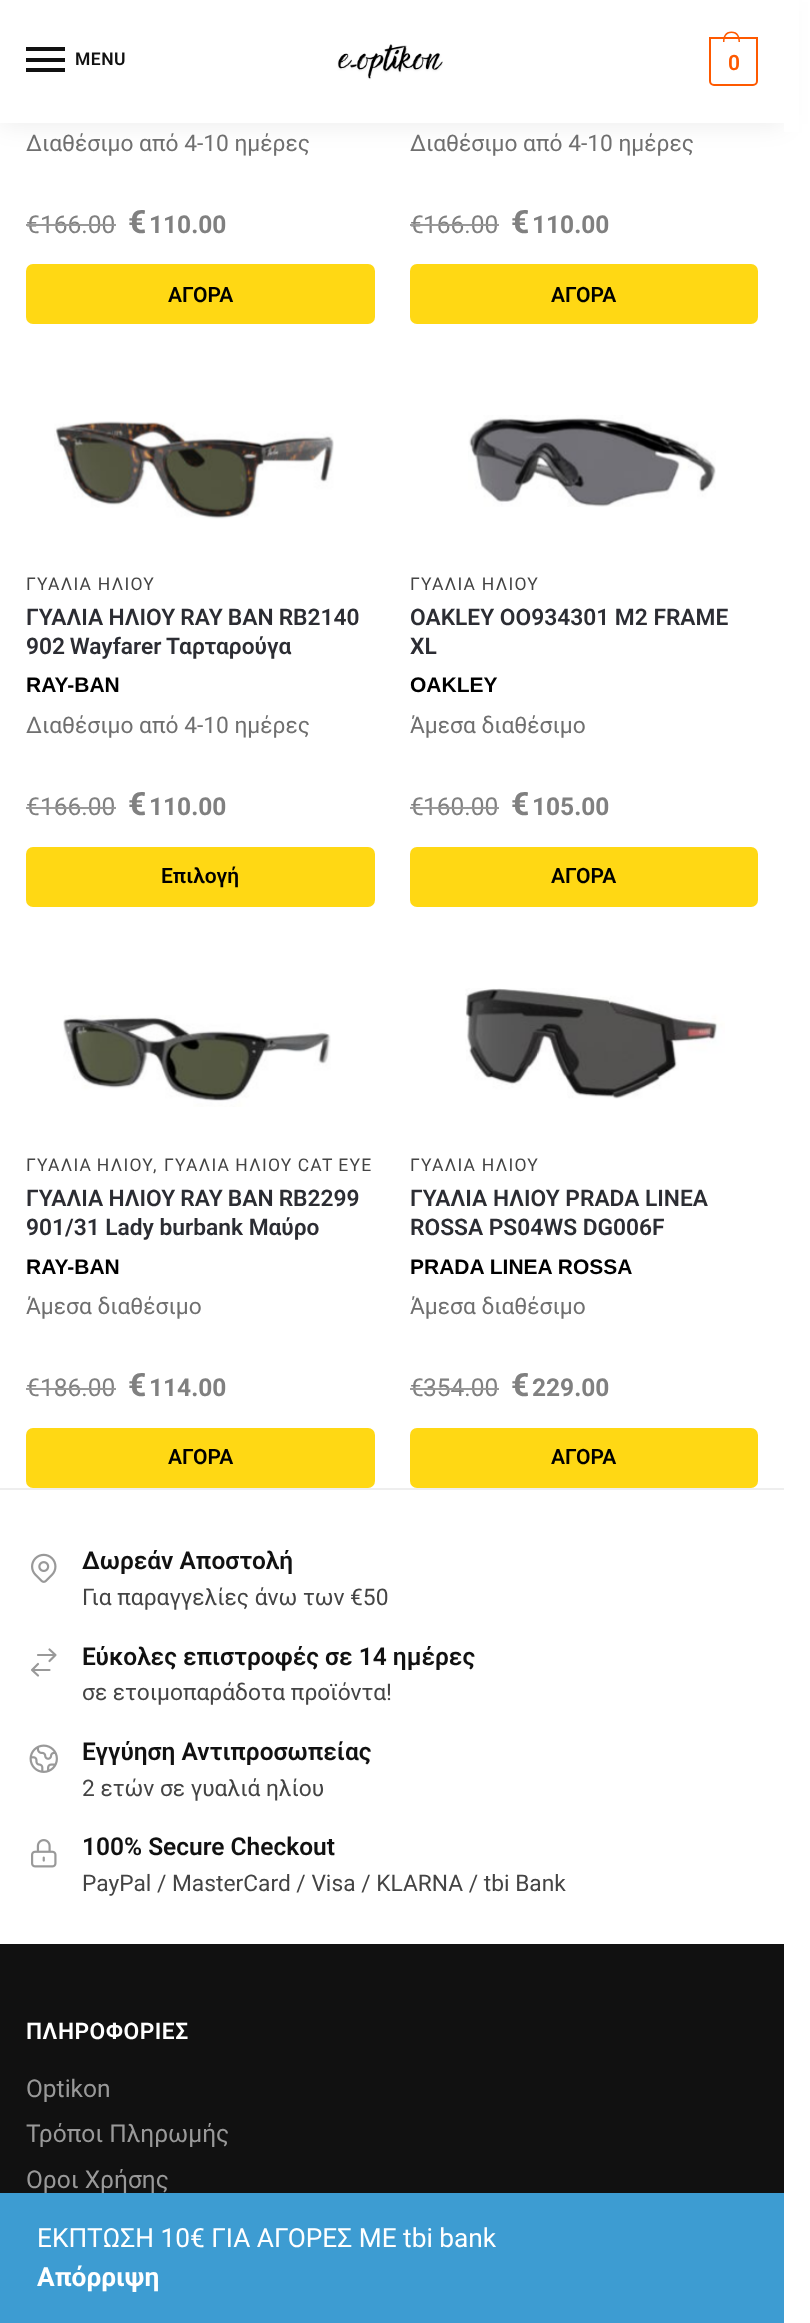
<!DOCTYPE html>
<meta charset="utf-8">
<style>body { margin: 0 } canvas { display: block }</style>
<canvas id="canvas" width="810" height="2323"></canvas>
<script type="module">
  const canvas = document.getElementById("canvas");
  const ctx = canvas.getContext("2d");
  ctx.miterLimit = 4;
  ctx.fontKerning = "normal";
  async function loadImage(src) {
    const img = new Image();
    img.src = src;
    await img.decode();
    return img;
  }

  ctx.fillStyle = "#ffffff";
  ctx.fillRect(0, 0, 810, 2323);
  ctx.fillStyle = "rgba(0, 0, 0, 0.08)";
  ctx.filter = "blur(13px)";
  ctx.beginPath();
  ctx.rect(0, 2, 784, 122);
  ctx.fill();
  ctx.filter = "none";
  ctx.fillStyle = "#ffffff";
  ctx.fillRect(0, 0, 784, 123);
  ctx.fillStyle = "#111111";
  ctx.fillRect(26, 47, 39, 4);
  ctx.fillRect(26, 58, 39, 4);
  ctx.letterSpacing = "0.5px";
  ctx.font = "600 17.5px Roboto";
  ctx.fillText("MENU", 75, 65);
  ctx.fillRect(26, 68, 39, 4);
  ctx.drawImage(await loadImage("img1.png"), 337, 44, 106, 36);
  ctx.beginPath();
  ctx.roundRect(710, 38, 47, 47, [0, 0, 4, 4]);
  ctx.strokeStyle = "#fe5900";
  ctx.lineWidth = 2;
  ctx.stroke();
  ctx.fillStyle = "#fe5900";
  ctx.beginPath();
  ctx.moveTo(731.5, 31.5);
  ctx.bezierCurveTo(738, 31.5, 740, 36.5, 740, 42);
  ctx.lineTo(723, 42);
  ctx.bezierCurveTo(723, 36.5, 725, 31.5, 731.5, 31.5);
  ctx.closePath();
  ctx.moveTo(731.5, 33);
  ctx.bezierCurveTo(737, 33, 738.5, 37.5, 738.5, 42);
  ctx.lineTo(724.5, 42);
  ctx.bezierCurveTo(724.5, 37.5, 726, 33, 731.5, 33);
  ctx.closePath();
  ctx.fill("evenodd");
  ctx.letterSpacing = "-1px";
  ctx.font = "600 21px Roboto";
  ctx.fillText("0", 728, 70);
  ctx.fillStyle = "#ffffff";
  ctx.fillRect(784, 0, 15, 132);
  ctx.letterSpacing = "0px";
  ctx.font = "22.75px Roboto";
  ctx.fillStyle = "#6f6f6f";
  ctx.fillText("Διαθέσιμο από 4-10 ημέρες", 26, 151);
  ctx.font = "24.5px Roboto";
  ctx.fillStyle = "#808080";
  ctx.fillText("€", 26, 233);
  ctx.fillStyle = "#9a9a9a";
  ctx.fillRect(26, 224, 14, 2);
  ctx.fillStyle = "#808080";
  ctx.fillText("166.00", 40, 233);
  ctx.fillStyle = "#9a9a9a";
  ctx.fillRect(40, 224, 76, 2);
  ctx.font = "bold 32px Roboto";
  ctx.fillStyle = "#808080";
  ctx.fillText("€", 128, 233);
  ctx.font = "bold 24.5px Roboto";
  ctx.fillText("110.00", 149, 233);
  ctx.fillStyle = "#ffd814";
  ctx.beginPath();
  ctx.roundRect(26, 264, 349, 60, 7);
  ctx.fill();
  ctx.font = "600 21px Roboto";
  ctx.fillStyle = "#000000";
  ctx.fillText("ΑΓΟΡΑ", 168, 302);
  ctx.font = "22.75px Roboto";
  ctx.fillStyle = "#6f6f6f";
  ctx.fillText("Διαθέσιμο από 4-10 ημέρες", 410, 151);
  ctx.font = "24.5px Roboto";
  ctx.fillStyle = "#808080";
  ctx.fillText("€", 410, 233);
  ctx.fillStyle = "#9a9a9a";
  ctx.fillRect(410, 224, 14, 2);
  ctx.fillStyle = "#808080";
  ctx.fillText("166.00", 423, 233);
  ctx.fillStyle = "#9a9a9a";
  ctx.fillRect(424, 224, 75, 2);
  ctx.font = "bold 32px Roboto";
  ctx.fillStyle = "#808080";
  ctx.fillText("€", 511, 233);
  ctx.font = "bold 24.5px Roboto";
  ctx.fillText("110.00", 532, 233);
  ctx.fillStyle = "#ffd814";
  ctx.beginPath();
  ctx.roundRect(410, 264, 348, 60, 7);
  ctx.fill();
  ctx.font = "600 21px Roboto";
  ctx.fillStyle = "#000000";
  ctx.fillText("ΑΓΟΡΑ", 551, 302);
  ctx.drawImage(await loadImage("img2.png"), 54, 421, 280, 98);
  ctx.letterSpacing = "1.25px";
  ctx.font = "17.5px Roboto";
  ctx.fillStyle = "#444444";
  ctx.fillText("ΓΥΑΛΙΑ ΗΛΙΟΥ", 26, 590);
  ctx.letterSpacing = "0px";
  ctx.wordSpacing = "-0.5px";
  ctx.font = "600 22.75px Roboto";
  ctx.fillStyle = "#2c2d33";
  ctx.fillText("ΓΥΑΛΙΑ ΗΛΙΟΥ RAY BAN RB2140", 26, 625);
  ctx.wordSpacing = "-1px";
  ctx.fillText("902 Wayfarer Ταρταρούγα", 26, 654);
  ctx.wordSpacing = "0px";
  ctx.font = "bold 21px Liberation Sans";
  ctx.fillStyle = "#000000";
  ctx.fillText("RAY-BAN", 26, 692);
  ctx.font = "22.75px Roboto";
  ctx.fillStyle = "#6f6f6f";
  ctx.fillText("Διαθέσιμο από 4-10 ημέρες", 26, 733);
  ctx.font = "24.5px Roboto";
  ctx.fillStyle = "#808080";
  ctx.fillText("€", 26, 815);
  ctx.fillStyle = "#9a9a9a";
  ctx.fillRect(26, 807, 14, 2);
  ctx.fillStyle = "#808080";
  ctx.fillText("166.00", 40, 815);
  ctx.fillStyle = "#9a9a9a";
  ctx.fillRect(40, 807, 76, 2);
  ctx.font = "bold 32px Roboto";
  ctx.fillStyle = "#808080";
  ctx.fillText("€", 128, 815);
  ctx.font = "bold 24.5px Roboto";
  ctx.fillText("110.00", 149, 815);
  ctx.fillStyle = "#ffd814";
  ctx.beginPath();
  ctx.roundRect(26, 847, 349, 60, 7);
  ctx.fill();
  ctx.font = "600 21px Roboto";
  ctx.fillStyle = "#000000";
  ctx.fillText("Επιλογή", 161, 883);
  ctx.drawImage(await loadImage("img3.png"), 468, 415, 248, 92);
  ctx.letterSpacing = "1.25px";
  ctx.font = "17.5px Roboto";
  ctx.fillStyle = "#444444";
  ctx.fillText("ΓΥΑΛΙΑ ΗΛΙΟΥ", 410, 590);
  ctx.letterSpacing = "0px";
  ctx.font = "600 22.75px Roboto";
  ctx.fillStyle = "#2c2d33";
  ctx.fillText("OAKLEY OO934301 M2 FRAME", 410, 625);
  ctx.fillText("XL", 410, 654);
  ctx.font = "bold 21px Liberation Sans";
  ctx.fillStyle = "#000000";
  ctx.fillText("OAKLEY", 410, 692);
  ctx.font = "22.75px Roboto";
  ctx.fillStyle = "#6f6f6f";
  ctx.fillText("Άμεσα διαθέσιμο", 410, 733);
  ctx.font = "24.5px Roboto";
  ctx.fillStyle = "#808080";
  ctx.fillText("€", 410, 815);
  ctx.fillStyle = "#9a9a9a";
  ctx.fillRect(410, 807, 14, 2);
  ctx.fillStyle = "#808080";
  ctx.fillText("160.00", 423, 815);
  ctx.fillStyle = "#9a9a9a";
  ctx.fillRect(424, 807, 75, 2);
  ctx.font = "bold 32px Roboto";
  ctx.fillStyle = "#808080";
  ctx.fillText("€", 511, 815);
  ctx.font = "bold 24.5px Roboto";
  ctx.fillText("105.00", 532, 815);
  ctx.fillStyle = "#ffd814";
  ctx.beginPath();
  ctx.roundRect(410, 847, 348, 60, 7);
  ctx.fill();
  ctx.font = "600 21px Roboto";
  ctx.fillStyle = "#000000";
  ctx.fillText("ΑΓΟΡΑ", 551, 883);
  ctx.drawImage(await loadImage("img4.png"), 63, 1015, 268, 92);
  ctx.letterSpacing = "1.25px";
  ctx.wordSpacing = "-1px";
  ctx.font = "17.5px Roboto";
  ctx.fillStyle = "#444444";
  ctx.fillText("ΓΥΑΛΙΑ ΗΛΙΟΥ", 26, 1171);
  ctx.wordSpacing = "0px";
  ctx.fillText(",", 153, 1171);
  ctx.wordSpacing = "-0.5px";
  ctx.fillText("ΓΥΑΛΙΑ ΗΛΙΟΥ CAT EYE", 164, 1171);
  ctx.letterSpacing = "0px";
  ctx.font = "600 22.75px Roboto";
  ctx.fillStyle = "#2c2d33";
  ctx.fillText("ΓΥΑΛΙΑ ΗΛΙΟΥ RAY BAN RB2299", 26, 1206);
  ctx.wordSpacing = "0px";
  ctx.fillText("901/31 Lady burbank Μαύρο", 26, 1235);
  ctx.font = "bold 21px Liberation Sans";
  ctx.fillStyle = "#000000";
  ctx.fillText("RAY-BAN", 26, 1274);
  ctx.font = "22.75px Roboto";
  ctx.fillStyle = "#6f6f6f";
  ctx.fillText("Άμεσα διαθέσιμο", 26, 1314);
  ctx.font = "24.5px Roboto";
  ctx.fillStyle = "#808080";
  ctx.fillText("€", 26, 1396);
  ctx.fillStyle = "#9a9a9a";
  ctx.fillRect(26, 1388, 14, 2);
  ctx.fillStyle = "#808080";
  ctx.fillText("186.00", 40, 1396);
  ctx.fillStyle = "#9a9a9a";
  ctx.fillRect(40, 1388, 76, 2);
  ctx.font = "bold 32px Roboto";
  ctx.fillStyle = "#808080";
  ctx.fillText("€", 128, 1396);
  ctx.font = "bold 24.5px Roboto";
  ctx.fillText("114.00", 149, 1396);
  ctx.fillStyle = "#ffd814";
  ctx.beginPath();
  ctx.roundRect(26, 1428, 349, 60, 7);
  ctx.fill();
  ctx.font = "600 21px Roboto";
  ctx.fillStyle = "#000000";
  ctx.fillText("ΑΓΟΡΑ", 168, 1464);
  ctx.drawImage(await loadImage("img5.png"), 465, 988, 260, 111);
  ctx.letterSpacing = "1.25px";
  ctx.font = "17.5px Roboto";
  ctx.fillStyle = "#444444";
  ctx.fillText("ΓΥΑΛΙΑ ΗΛΙΟΥ", 410, 1171);
  ctx.letterSpacing = "0px";
  ctx.font = "600 22.75px Roboto";
  ctx.fillStyle = "#2c2d33";
  ctx.fillText("ΓΥΑΛΙΑ ΗΛΙΟΥ PRADA LINEA", 410, 1206);
  ctx.fillText("ROSSA PS04WS DG006F", 410, 1235);
  ctx.font = "bold 21px Liberation Sans";
  ctx.fillStyle = "#000000";
  ctx.fillText("PRADA LINEA ROSSA", 410, 1274);
  ctx.font = "22.75px Roboto";
  ctx.fillStyle = "#6f6f6f";
  ctx.fillText("Άμεσα διαθέσιμο", 410, 1314);
  ctx.font = "24.5px Roboto";
  ctx.fillStyle = "#808080";
  ctx.fillText("€", 410, 1396);
  ctx.fillText("354.00", 423, 1396);
  ctx.fillStyle = "#9a9a9a";
  ctx.fillRect(424, 1388, 75, 2);
  ctx.fillRect(410, 1388, 14, 2);
  ctx.font = "bold 32px Roboto";
  ctx.fillStyle = "#808080";
  ctx.fillText("€", 511, 1396);
  ctx.font = "bold 24.5px Roboto";
  ctx.fillText("229.00", 532, 1396);
  ctx.fillStyle = "#ffd814";
  ctx.beginPath();
  ctx.roundRect(410, 1428, 348, 60, 7);
  ctx.fill();
  ctx.font = "600 21px Roboto";
  ctx.fillStyle = "#000000";
  ctx.fillText("ΑΓΟΡΑ", 551, 1464);
  ctx.fillStyle = "#eeeeee";
  ctx.fillRect(0, 1488, 784, 2);
  ctx.font = "600 24.5px Roboto";
  ctx.fillStyle = "#111111";
  ctx.fillText("Δωρεάν Αποστολή", 82, 1569);
  ctx.drawImage(await loadImage("img6.png"), 31, 1553, 26, 30);
  ctx.font = "22.75px Roboto";
  ctx.fillStyle = "#444444";
  ctx.fillText("Για παραγγελίες άνω των €50", 82, 1605);
  ctx.font = "600 24.5px Roboto";
  ctx.fillStyle = "#111111";
  ctx.fillText("Εύκολες επιστροφές σε 14 ημέρες", 82, 1665);
  ctx.beginPath();
  ctx.moveTo(38, 1655);
  ctx.lineTo(55.5, 1655);
  ctx.moveTo(55.5, 1655);
  ctx.lineTo(49.5, 1649.5);
  ctx.moveTo(55.5, 1655);
  ctx.lineTo(49.5, 1661);
  ctx.moveTo(49.5, 1670);
  ctx.lineTo(32, 1670);
  ctx.moveTo(32, 1670);
  ctx.lineTo(38, 1675.5);
  ctx.moveTo(32, 1670);
  ctx.lineTo(38, 1664);
  ctx.strokeStyle = "#999999";
  ctx.lineWidth = 2.2;
  ctx.lineCap = "round";
  ctx.lineJoin = "round";
  ctx.stroke();
  ctx.font = "22.75px Roboto";
  ctx.fillStyle = "#444444";
  ctx.fillText("σε ετοιμοπαράδοτα προϊόντα!", 82, 1700);
  ctx.font = "600 24.5px Roboto";
  ctx.fillStyle = "#111111";
  ctx.fillText("Εγγύηση Αντιπροσωπείας", 82, 1760);
  ctx.drawImage(await loadImage("img7.png"), 29, 1744, 29, 29);
  ctx.font = "22.75px Roboto";
  ctx.fillStyle = "#444444";
  ctx.fillText("2 ετών σε γυαλιά ηλίου", 82, 1796);
  ctx.font = "600 24.5px Roboto";
  ctx.fillStyle = "#111111";
  ctx.fillText("100% Secure Checkout", 82, 1855);
  ctx.drawImage(await loadImage("img8.png"), 31, 1839, 26, 29);
  ctx.font = "22.75px Roboto";
  ctx.fillStyle = "#444444";
  ctx.fillText("PayPal / MasterCard / Visa / KLARNA / tbi Bank", 82, 1891);
  ctx.fillStyle = "#111111";
  ctx.fillRect(0, 1944, 784, 249);
  ctx.letterSpacing = "0.5px";
  ctx.font = "600 22.75px Roboto";
  ctx.fillStyle = "#ffffff";
  ctx.fillText("ΠΛΗΡΟΦΟΡΙΕΣ", 26, 2039);
  ctx.letterSpacing = "0px";
  ctx.font = "24.5px Roboto";
  ctx.fillStyle = "#999999";
  ctx.fillText("Optikon", 26, 2097);
  ctx.fillText("Τρόποι Πληρωμής", 26, 2142);
  ctx.fillText("Οροι Χρήσης", 26, 2188);
  ctx.fillStyle = "#3d9cd2";
  ctx.fillRect(0, 2193, 784, 130);
  ctx.font = "26.25px Roboto";
  ctx.fillStyle = "#ffffff";
  ctx.fillText("ΕΚΠΤΩΣΗ 10€ ΓΙΑ ΑΓΟΡΕΣ ΜΕ tbi bank", 37, 2247);
  ctx.font = "bold 26.25px Roboto";
  ctx.fillText("Απόρριψη", 37, 2286);
</script>
